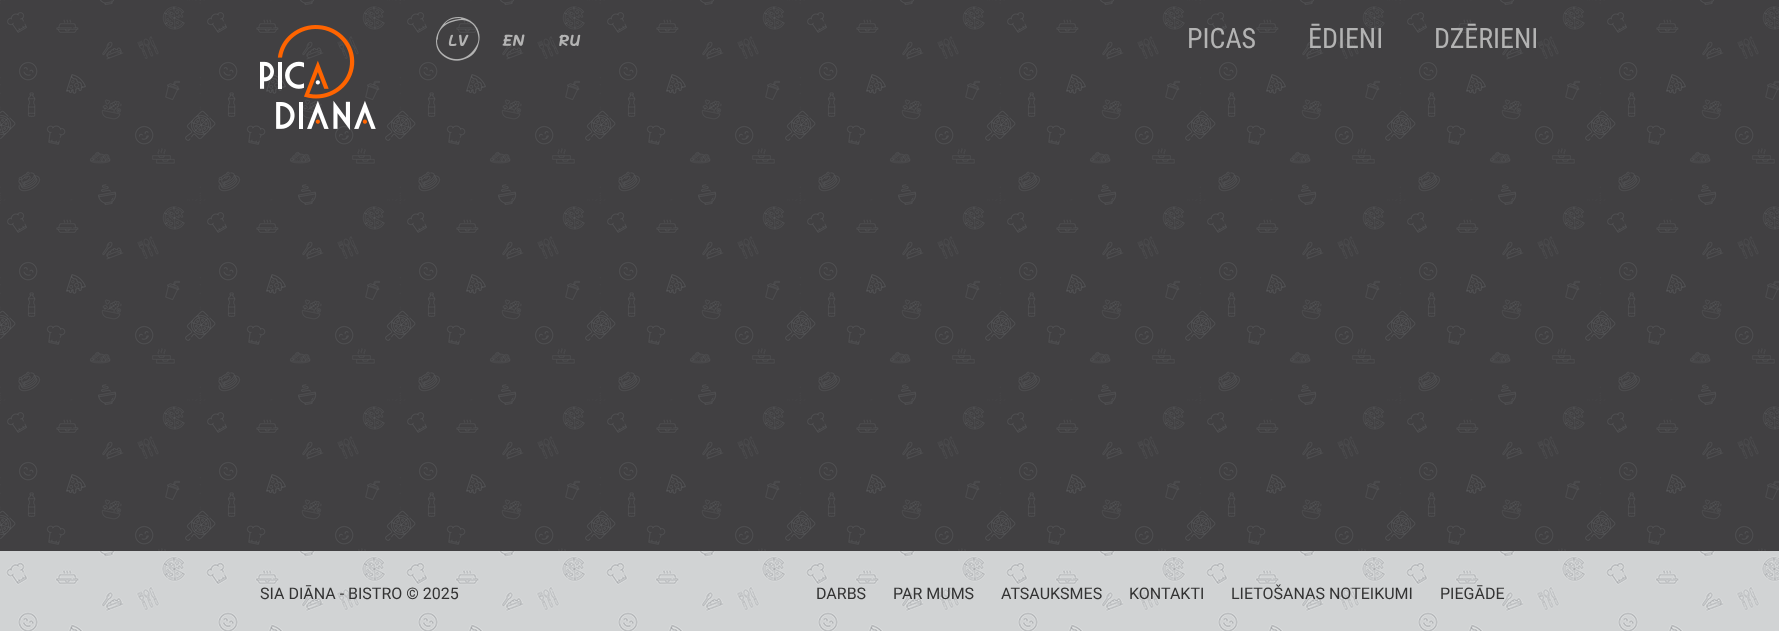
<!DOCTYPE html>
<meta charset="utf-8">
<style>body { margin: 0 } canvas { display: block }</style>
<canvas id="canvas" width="1779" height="631"></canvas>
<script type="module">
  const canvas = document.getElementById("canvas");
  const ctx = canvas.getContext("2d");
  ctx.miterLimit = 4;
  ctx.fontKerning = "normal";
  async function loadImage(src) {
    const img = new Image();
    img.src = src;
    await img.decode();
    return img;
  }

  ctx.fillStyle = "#ffffff";
  ctx.fillRect(0, 0, 1779, 631);
  ctx.drawImage(await loadImage("img1.png"), 0, 0, 1779, 551);
  ctx.drawImage(await loadImage("img2.png"), 260, 25, 116, 105);
  ctx.drawImage(await loadImage("img3.png"), 436, 17, 44, 44);
  ctx.font = "italic bold 16px Mali";
  ctx.fillStyle = "#b3b3b3";
  ctx.fillText("LV", 448, 46);
  ctx.fillText("EN", 502, 46);
  ctx.fillText("RU", 558, 46);
  ctx.font = "28px Roboto Condensed";
  ctx.fillText("PICAS", 1187, 48);
  ctx.fillText("ĒDIENI", 1308, 48);
  ctx.fillText("DZĒRIENI", 1434, 48);
  ctx.drawImage(await loadImage("img4.png"), 0, 551, 1779, 80);
  ctx.font = "16px Roboto";
  ctx.fillStyle = "#333333";
  ctx.fillText("SIA DIĀNA - BISTRO © 2025", 260, 599);
  ctx.fillText("DARBS", 816, 599);
  ctx.fillText("PAR MUMS", 893, 599);
  ctx.fillText("ATSAUKSMES", 1001, 599);
  ctx.fillText("KONTAKTI", 1129, 599);
  ctx.fillText("LIETOŠANAS NOTEIKUMI", 1231, 599);
  ctx.fillText("PIEGĀDE", 1440, 599);
</script>
